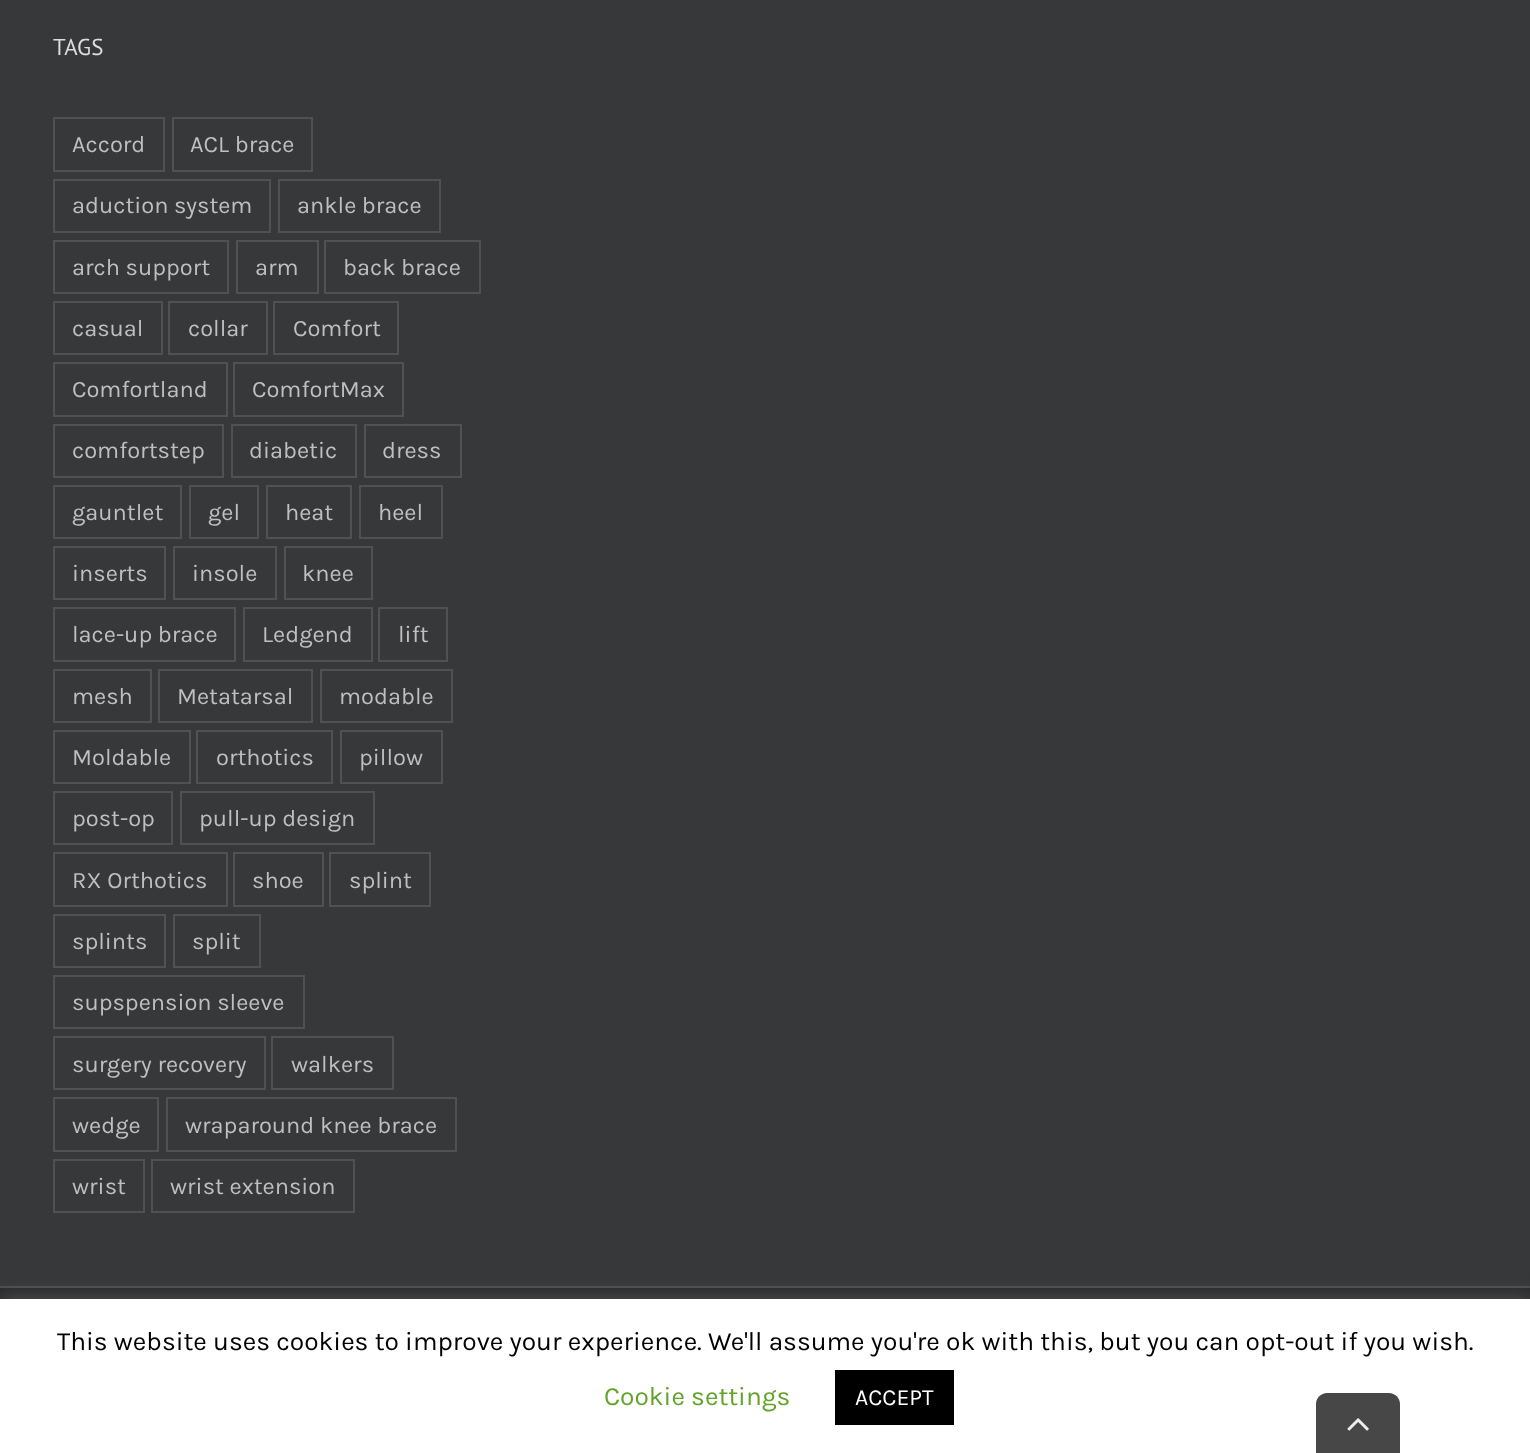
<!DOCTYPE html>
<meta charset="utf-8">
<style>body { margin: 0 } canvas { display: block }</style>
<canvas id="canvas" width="1530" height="1453"></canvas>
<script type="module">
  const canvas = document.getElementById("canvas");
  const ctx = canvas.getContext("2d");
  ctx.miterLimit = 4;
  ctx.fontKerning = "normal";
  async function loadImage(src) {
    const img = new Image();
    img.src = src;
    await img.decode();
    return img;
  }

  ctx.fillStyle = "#363839";
  ctx.fillRect(0, 0, 1530, 1453);
  ctx.font = "23px PT Sans";
  ctx.fillStyle = "#dddddd";
  ctx.fillText("TAGS", 53, 55);
  ctx.strokeStyle = "#505152";
  ctx.lineWidth = 2;
  ctx.strokeRect(54, 118, 110, 53);
  ctx.font = "23.6px Karla";
  ctx.fillStyle = "#bfbfbf";
  ctx.fillText("Accord", 72, 152);
  ctx.strokeRect(173, 118, 139, 53);
  ctx.fillText("ACL brace", 190, 152);
  ctx.strokeRect(54, 180, 216, 52);
  ctx.fillText("aduction system", 72, 213);
  ctx.strokeRect(279, 180, 161, 52);
  ctx.fillText("ankle brace", 297, 213);
  ctx.strokeRect(54, 241, 174, 52);
  ctx.fillText("arch support", 72, 275);
  ctx.strokeRect(237, 241, 81, 52);
  ctx.fillText("arm", 255, 275);
  ctx.strokeRect(325, 241, 155, 52);
  ctx.fillText("back brace", 343, 275);
  ctx.strokeRect(54, 302, 108, 52);
  ctx.fillText("casual", 72, 336);
  ctx.strokeRect(169, 302, 98, 52);
  ctx.fillText("collar", 188, 336);
  ctx.strokeRect(274, 302, 124, 52);
  ctx.fillText("Comfort", 293, 336);
  ctx.strokeRect(54, 363, 173, 53);
  ctx.fillText("Comfortland", 72, 397);
  ctx.strokeRect(234, 363, 169, 53);
  ctx.fillText("ComfortMax", 252, 397);
  ctx.strokeRect(54, 425, 169, 52);
  ctx.fillText("comfortstep", 72, 458);
  ctx.strokeRect(232, 425, 124, 52);
  ctx.fillText("diabetic", 249, 458);
  ctx.strokeRect(365, 425, 96, 52);
  ctx.fillText("dress", 382, 458);
  ctx.strokeRect(54, 486, 127, 52);
  ctx.fillText("gauntlet", 72, 520);
  ctx.strokeRect(190, 486, 68, 52);
  ctx.fillText("gel", 208, 520);
  ctx.strokeRect(267, 486, 84, 52);
  ctx.fillText("heat", 285, 520);
  ctx.strokeRect(360, 486, 82, 52);
  ctx.fillText("heel", 378, 520);
  ctx.strokeRect(54, 547, 111, 52);
  ctx.fillText("inserts", 72, 581);
  ctx.strokeRect(174, 547, 102, 52);
  ctx.fillText("insole", 192, 581);
  ctx.strokeRect(285, 547, 87, 52);
  ctx.fillText("knee", 302, 581);
  ctx.strokeRect(54, 608, 181, 53);
  ctx.fillText("lace-up brace", 72, 642);
  ctx.strokeRect(244, 608, 128, 53);
  ctx.fillText("Ledgend", 262, 642);
  ctx.strokeRect(379, 608, 68, 53);
  ctx.fillText("lift", 398, 642);
  ctx.strokeRect(54, 670, 97, 52);
  ctx.fillText("mesh", 72, 704);
  ctx.strokeRect(159, 670, 153, 52);
  ctx.fillText("Metatarsal", 177, 704);
  ctx.strokeRect(321, 670, 131, 52);
  ctx.fillText("modable", 339, 704);
  ctx.strokeRect(54, 731, 136, 52);
  ctx.fillText("Moldable", 72, 765);
  ctx.strokeRect(197, 731, 135, 52);
  ctx.fillText("orthotics", 216, 765);
  ctx.strokeRect(341, 731, 101, 52);
  ctx.fillText("pillow", 359, 765);
  ctx.strokeRect(54, 792, 118, 52);
  ctx.fillText("post-op", 72, 826);
  ctx.strokeRect(181, 792, 193, 52);
  ctx.fillText("pull-up design", 199, 826);
  ctx.strokeRect(54, 853, 173, 53);
  ctx.fillText("RX Orthotics", 72, 888);
  ctx.strokeRect(234, 853, 89, 53);
  ctx.fillText("shoe", 252, 888);
  ctx.strokeRect(330, 853, 100, 53);
  ctx.fillText("splint", 349, 888);
  ctx.strokeRect(54, 915, 111, 52);
  ctx.fillText("splints", 72, 949);
  ctx.strokeRect(174, 915, 86, 52);
  ctx.fillText("split", 192, 949);
  ctx.strokeRect(54, 976, 250, 52);
  ctx.fillText("supspension sleeve", 72, 1010);
  ctx.strokeRect(54, 1037, 211, 52);
  ctx.fillText("surgery recovery", 72, 1072);
  ctx.strokeRect(272, 1037, 121, 52);
  ctx.fillText("walkers", 291, 1072);
  ctx.strokeRect(54, 1098, 104, 53);
  ctx.fillText("wedge", 72, 1133);
  ctx.strokeRect(167, 1098, 289, 53);
  ctx.fillText("wraparound knee brace", 185, 1133);
  ctx.strokeRect(54, 1160, 90, 52);
  ctx.fillText("wrist", 72, 1194);
  ctx.strokeRect(152, 1160, 202, 52);
  ctx.fillText("wrist extension", 170, 1194);
  ctx.fillStyle = "#282a2b";
  ctx.fillRect(0, 1288, 1530, 11);
  ctx.fillStyle = "#4b4c4d";
  ctx.fillRect(0, 1286, 1530, 2);
  ctx.fillStyle = "rgba(172, 171, 171, 0.3)";
  ctx.filter = "blur(9px)";
  ctx.beginPath();
  ctx.rect(0, 1297, 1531, 156);
  ctx.fill();
  ctx.filter = "none";
  ctx.fillStyle = "#ffffff";
  ctx.fillRect(0, 1299, 1530, 154);
  ctx.font = "26.25px Karla";
  ctx.fillStyle = "#000000";
  ctx.fillText("This website uses cookies to improve your experience. We'll assume you're ok with this, but you can opt-out if you wish.", 57, 1350);
  ctx.fillStyle = "#62a329";
  ctx.fillText("Cookie settings", 604, 1405);
  ctx.fillStyle = "#000000";
  ctx.fillRect(835, 1370, 119, 55);
  ctx.font = "23px Karla";
  ctx.fillStyle = "#ffffff";
  ctx.fillText("ACCEPT", 855, 1405);
  ctx.fillStyle = "#474747";
  ctx.beginPath();
  ctx.moveTo(1327, 1393);
  ctx.lineTo(1389, 1393);
  ctx.bezierCurveTo(1395, 1393, 1400, 1398, 1400, 1404);
  ctx.lineTo(1400, 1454);
  ctx.lineTo(1316, 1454);
  ctx.lineTo(1316, 1404);
  ctx.bezierCurveTo(1316, 1398, 1321, 1393, 1327, 1393);
  ctx.closePath();
  ctx.fill();
  ctx.drawImage(await loadImage("img1.png"), 1347, 1418, 22, 13);
</script>
